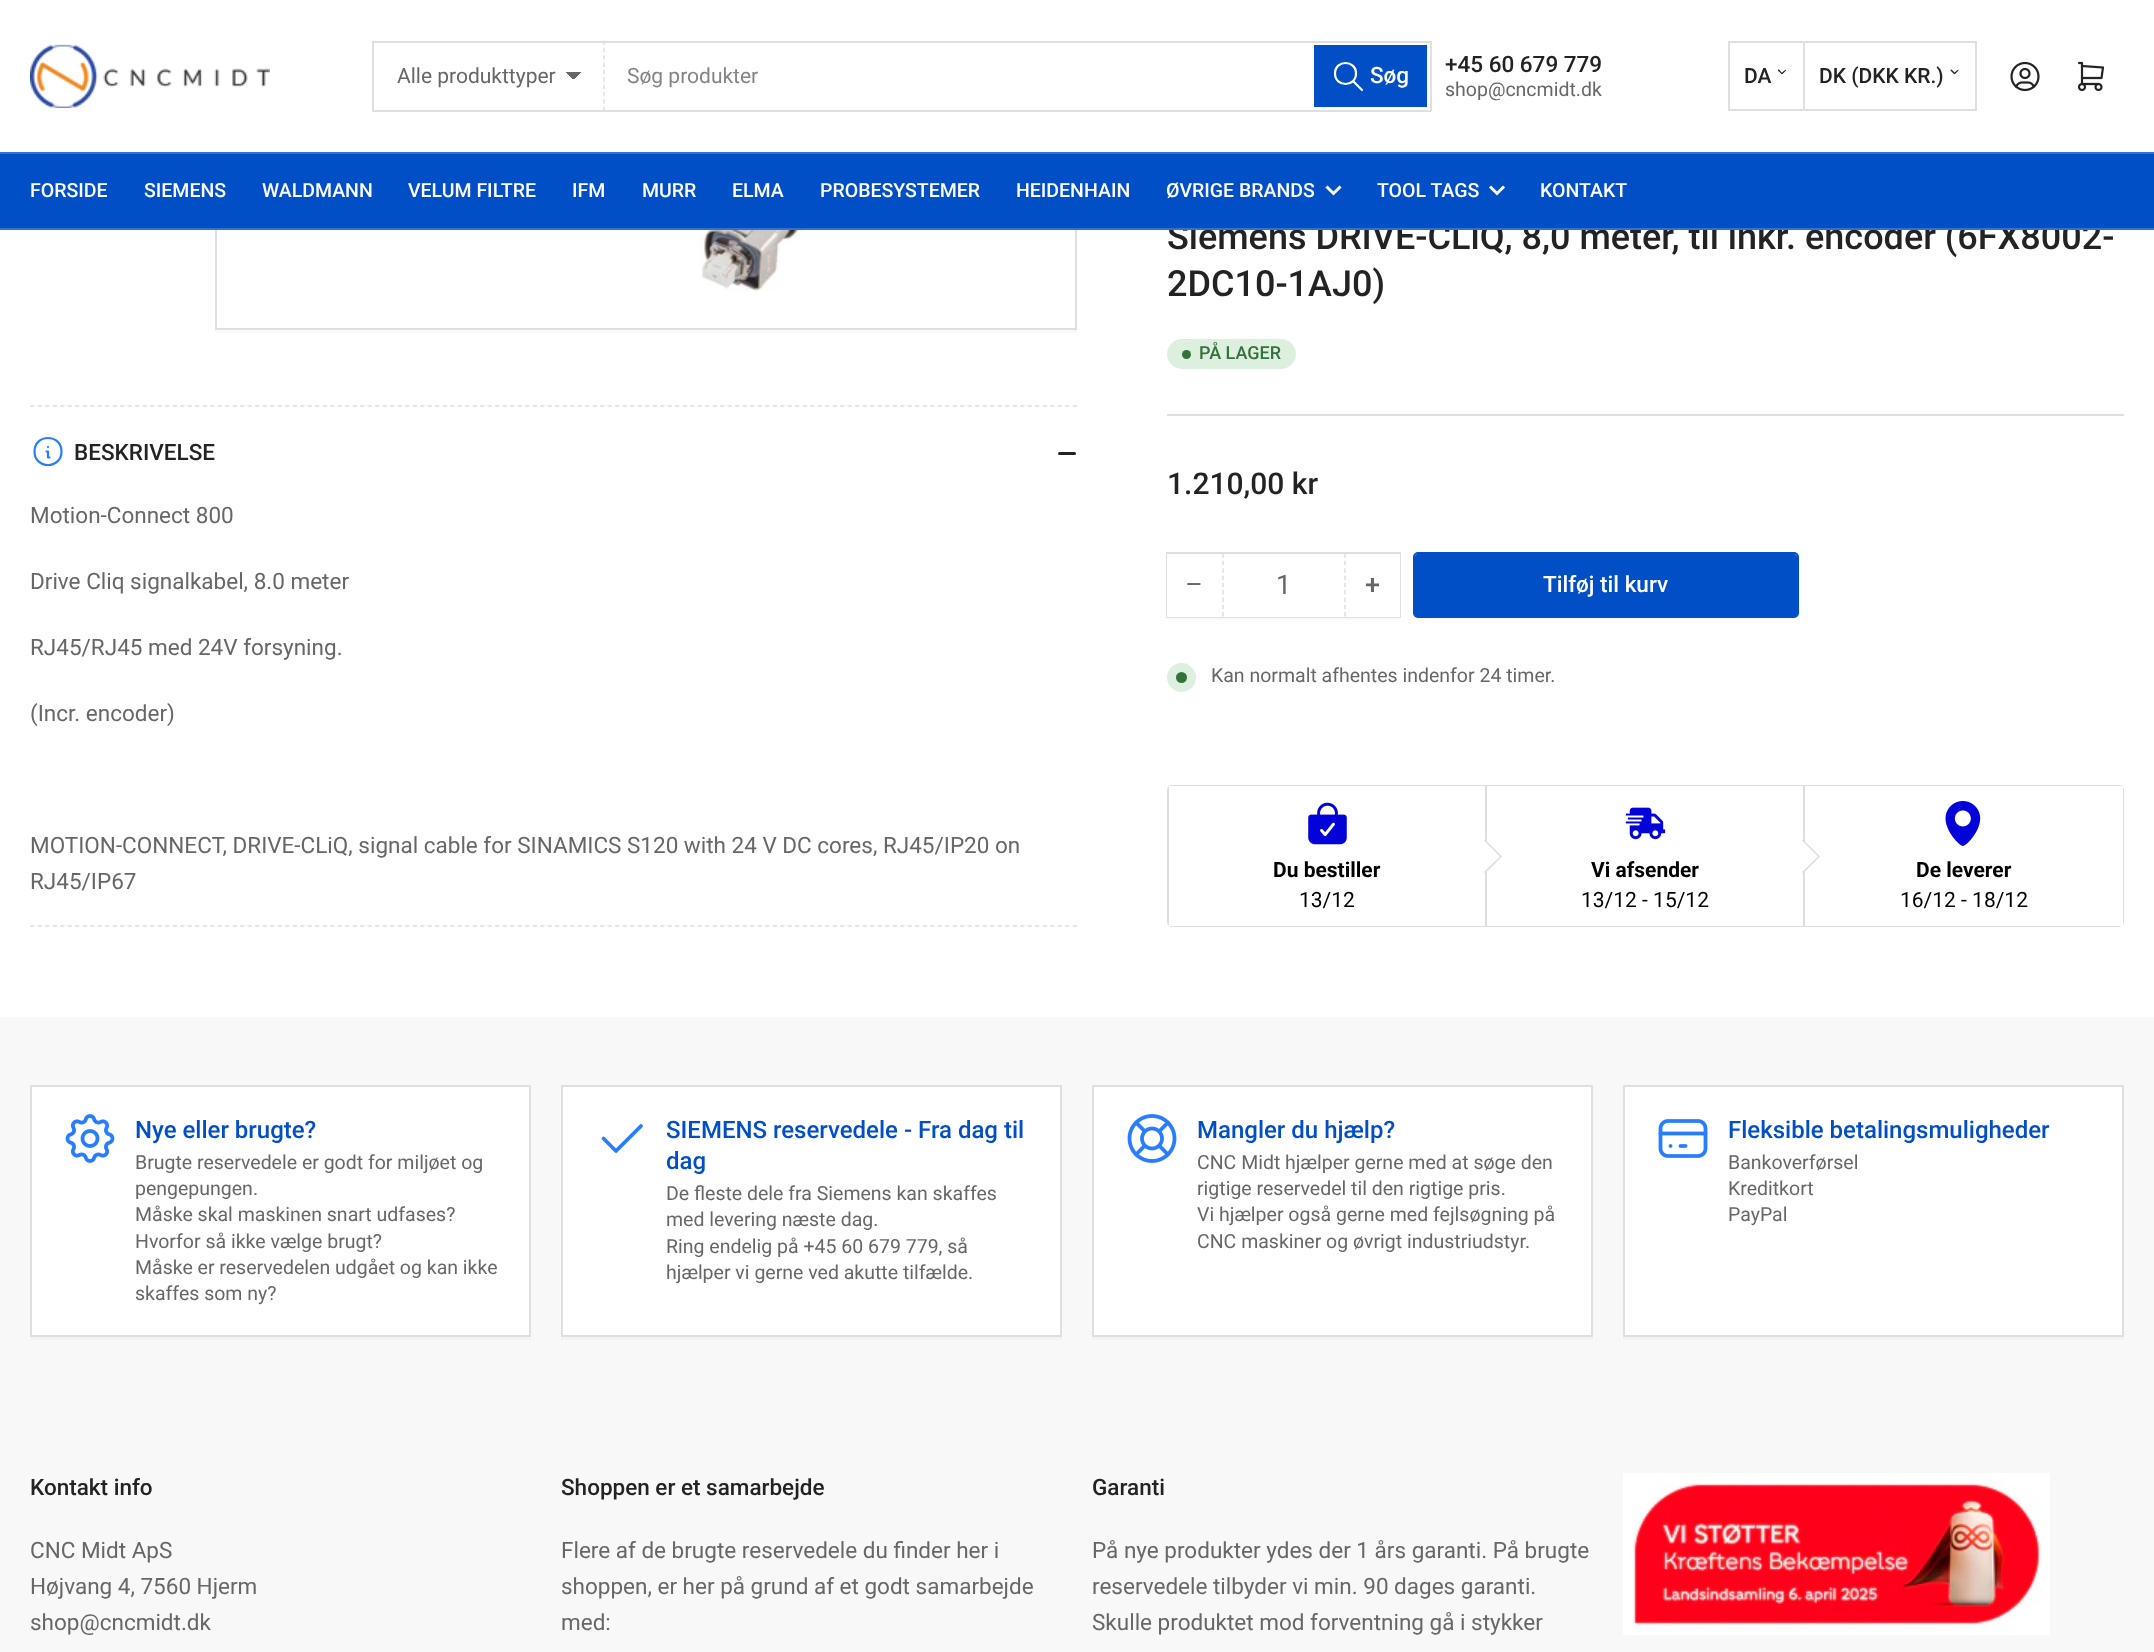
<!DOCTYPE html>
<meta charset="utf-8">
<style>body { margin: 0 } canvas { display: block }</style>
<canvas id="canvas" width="2154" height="1652"></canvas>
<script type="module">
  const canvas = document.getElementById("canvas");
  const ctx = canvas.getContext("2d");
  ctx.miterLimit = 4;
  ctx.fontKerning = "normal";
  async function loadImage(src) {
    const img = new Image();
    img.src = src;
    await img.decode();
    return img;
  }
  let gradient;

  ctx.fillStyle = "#ffffff";
  ctx.fillRect(0, 0, 2154, 1652);
  ctx.strokeStyle = "#dfdfdf";
  ctx.lineWidth = 2;
  ctx.strokeRect(216, -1, 860, 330);
  ctx.fillRect(215, 0, 862, 152);
  ctx.drawImage(await loadImage("img1.png"), 30, 44, 240, 64);
  gradient = ctx.createLinearGradient(573, 72, 581, 80);
  gradient.addColorStop(0.5, "#676767");
  gradient.addColorStop(0.5, "#ffffff");
  ctx.fillStyle = gradient;
  ctx.fillRect(573, 72, 8, 7);
  gradient = ctx.createLinearGradient(566, 80, 573, 72);
  gradient.addColorStop(0.5, "#ffffff");
  gradient.addColorStop(0.5, "#676767");
  ctx.fillStyle = gradient;
  ctx.fillRect(566, 72, 7, 8);
  ctx.fillStyle = "#dfdfdf";
  ctx.fillRect(372, 41, 1059, 2);
  ctx.beginPath();
  ctx.moveTo(604, 40.5);
  ctx.lineTo(604, 111);
  ctx.lineWidth = 1.5;
  ctx.setLineDash([4.5, 2.83]);
  ctx.stroke();
  ctx.fillRect(372, 110, 233, 2);
  ctx.fillRect(372, 41, 2, 70);
  ctx.font = "21px Roboto";
  ctx.fillStyle = "#676767";
  ctx.fillText("Alle produkttyper", 397, 83);
  ctx.fillStyle = "#dfdfdf";
  ctx.fillRect(1430, 41, 2, 70);
  ctx.fillRect(605, 110, 826, 2);
  ctx.fillStyle = "#858585";
  ctx.fillText("Søg produkter", 627, 83);
  ctx.strokeStyle = "#004fc7";
  ctx.lineWidth = 2;
  ctx.setLineDash([]);
  ctx.strokeRect(1315, 46, 111, 60);
  ctx.fillStyle = "#004fc7";
  ctx.fillRect(1316, 47, 109, 58);
  ctx.beginPath();
  ctx.moveTo(1335, 73.5);
  ctx.bezierCurveTo(1335, 87.5, 1356, 87.5, 1356, 73.5);
  ctx.bezierCurveTo(1356, 59.5, 1335, 59.5, 1335, 73.5);
  ctx.moveTo(1362, 90);
  ctx.lineTo(1353, 81);
  ctx.strokeStyle = "#ffffff";
  ctx.lineWidth = 2.2;
  ctx.lineCap = "round";
  ctx.lineJoin = "round";
  ctx.stroke();
  ctx.font = "500 22.5px Roboto";
  ctx.fillStyle = "#ffffff";
  ctx.fillText("Søg", 1370, 83);
  ctx.fillStyle = "#232323";
  ctx.fillText("+45 60 679 779", 1445, 72);
  ctx.font = "19.5px Roboto";
  ctx.fillStyle = "#676767";
  ctx.fillText("shop@cncmidt.dk", 1445, 96);
  ctx.strokeStyle = "#dfdfdf";
  ctx.lineWidth = 2;
  ctx.lineJoin = "miter";
  ctx.strokeRect(1729, 42, 247, 68);
  ctx.font = "500 21px Roboto";
  ctx.fillStyle = "#232323";
  ctx.fillText("DA", 1744, 83);
  ctx.beginPath();
  ctx.moveTo(1779, 69.5);
  ctx.lineTo(1781.5, 72.5);
  ctx.bezierCurveTo(1782.5, 73.5, 1782.5, 74.5, 1781.5, 74);
  ctx.lineTo(1779, 71.5);
  ctx.bezierCurveTo(1778.5, 71.5, 1777.5, 70.5, 1778, 70);
  ctx.bezierCurveTo(1778, 69.5, 1778.5, 69.5, 1779, 69.5);
  ctx.closePath();
  ctx.fill();
  ctx.beginPath();
  ctx.moveTo(1781.5, 73);
  ctx.lineTo(1784.5, 70.5);
  ctx.bezierCurveTo(1785.5, 69.5, 1786.5, 69.5, 1786, 70.5);
  ctx.lineTo(1783.5, 73);
  ctx.bezierCurveTo(1783, 73, 1782.5, 74.5, 1782, 74);
  ctx.bezierCurveTo(1781.5, 74, 1781, 73.5, 1781.5, 73);
  ctx.closePath();
  ctx.fill();
  ctx.fillStyle = "#dfdfdf";
  ctx.fillRect(1803, 42, 2, 68);
  ctx.fillStyle = "#232323";
  ctx.fillText("DK (DKK KR.)", 1819, 83);
  ctx.beginPath();
  ctx.moveTo(1951.5, 69.5);
  ctx.lineTo(1954.5, 72.5);
  ctx.bezierCurveTo(1955, 73.5, 1955, 74.5, 1954, 74);
  ctx.lineTo(1951.5, 71.5);
  ctx.bezierCurveTo(1951.5, 71.5, 1950.5, 70.5, 1950.5, 70);
  ctx.bezierCurveTo(1950.5, 69.5, 1951, 69.5, 1951.5, 69.5);
  ctx.closePath();
  ctx.fill();
  ctx.beginPath();
  ctx.moveTo(1954, 73);
  ctx.lineTo(1957, 70.5);
  ctx.bezierCurveTo(1958, 69.5, 1959, 69.5, 1958.5, 70.5);
  ctx.lineTo(1956, 73);
  ctx.bezierCurveTo(1956, 73, 1955, 74.5, 1954.5, 74);
  ctx.bezierCurveTo(1954, 74, 1954, 73.5, 1954, 73);
  ctx.closePath();
  ctx.fill();
  ctx.drawImage(await loadImage("img2.png"), 2010, 61, 30, 31);
  ctx.drawImage(await loadImage("img3.png"), 2077, 61, 28, 31);
  ctx.font = "500 36px Roboto";
  ctx.fillText("Siemens DRIVE-CLiQ, 8,0 meter, til inkr. encoder (6FX8002-", 1167, 249);
  ctx.fillStyle = "#004fc7";
  ctx.fillRect(0, 154, 2154, 74);
  ctx.fillStyle = "#3372d2";
  ctx.fillRect(0, 152, 2154, 2);
  ctx.fillRect(0, 228, 2154, 2);
  ctx.font = "500 19.5px Roboto";
  ctx.fillStyle = "#ffffff";
  ctx.fillText("FORSIDE", 30, 197);
  ctx.fillText("SIEMENS", 144, 197);
  ctx.fillText("WALDMANN", 262, 197);
  ctx.fillText("VELUM FILTRE", 408, 197);
  ctx.fillText("IFM", 572, 197);
  ctx.fillText("MURR", 642, 197);
  ctx.fillText("ELMA", 732, 197);
  ctx.fillText("PROBESYSTEMER", 820, 197);
  ctx.fillText("HEIDENHAIN", 1016, 197);
  ctx.fillText("ØVRIGE BRANDS", 1166, 197);
  ctx.beginPath();
  ctx.moveTo(1339.5, 187.5);
  ctx.lineTo(1333.5, 193.5);
  ctx.lineTo(1327.5, 187.5);
  ctx.strokeStyle = "#ffffff";
  ctx.lineWidth = 3;
  ctx.lineCap = "square";
  ctx.stroke();
  ctx.fillText("TOOL TAGS", 1377, 197);
  ctx.beginPath();
  ctx.moveTo(1503, 187.5);
  ctx.lineTo(1497, 193.5);
  ctx.lineTo(1491, 187.5);
  ctx.stroke();
  ctx.fillText("KONTAKT", 1540, 197);
  ctx.fillStyle = "#f9f9f9";
  ctx.fillRect(215, 330, 862, 3);
  ctx.drawImage(await loadImage("img4.png"), 367, 230, 559, 62);
  ctx.beginPath();
  ctx.moveTo(30, 406);
  ctx.lineTo(1077, 406);
  ctx.strokeStyle = "#dfdfdf";
  ctx.lineWidth = 1.5;
  ctx.lineCap = "butt";
  ctx.setLineDash([4.5, 3]);
  ctx.stroke();
  ctx.beginPath();
  ctx.moveTo(30, 926);
  ctx.lineTo(1077, 926);
  ctx.stroke();
  ctx.beginPath();
  ctx.moveTo(34.5, 451.5);
  ctx.bezierCurveTo(34.5, 469.5, 61.5, 469.5, 61.5, 451.5);
  ctx.bezierCurveTo(61.5, 433.5, 34.5, 433.5, 34.5, 451.5);
  ctx.moveTo(48, 447);
  ctx.lineTo(48, 447);
  ctx.moveTo(46.5, 451.5);
  ctx.lineTo(48, 451.5);
  ctx.lineTo(48, 457.5);
  ctx.lineTo(49.5, 457.5);
  ctx.strokeStyle = "#287dff";
  ctx.lineWidth = 2.2;
  ctx.lineCap = "round";
  ctx.lineJoin = "round";
  ctx.setLineDash([]);
  ctx.stroke();
  ctx.font = "500 22.5px Roboto";
  ctx.fillStyle = "#232323";
  ctx.fillText("BESKRIVELSE", 74, 460);
  ctx.beginPath();
  ctx.roundRect(1058, 452, 10, 3, 1.5);
  ctx.fill();
  ctx.beginPath();
  ctx.roundRect(1064, 452, 12, 3, 1.5);
  ctx.fill();
  ctx.font = "22.5px Roboto";
  ctx.fillStyle = "#676767";
  ctx.fillText("Motion-Connect 800", 30, 523);
  ctx.fillText("Drive Cliq signalkabel, 8.0 meter", 30, 589);
  ctx.fillText("RJ45/RJ45 med 24V forsyning.", 30, 655);
  ctx.fillText("(Incr. encoder)", 30, 721);
  ctx.fillText("MOTION-CONNECT, DRIVE-CLiQ, signal cable for SINAMICS S120 with 24 V DC cores, RJ45/IP20 on", 30, 853);
  ctx.fillText("RJ45/IP67", 30, 889);
  ctx.fillStyle = "#dfdfdf";
  ctx.fillRect(1167, 414, 957, 2);
  ctx.font = "500 36px Roboto";
  ctx.fillStyle = "#232323";
  ctx.fillText("2DC10-1AJ0)", 1167, 296);
  ctx.fillStyle = "#ddf0df";
  ctx.beginPath();
  ctx.roundRect(1167, 339, 129, 30, 15);
  ctx.fill();
  ctx.fillStyle = "#337239";
  ctx.beginPath();
  ctx.arc(1186.5, 354.5, 4.5, 0, Math.PI * 2);
  ctx.fill();
  ctx.font = "500 18px Roboto";
  ctx.fillText("PÅ LAGER", 1199, 359);
  ctx.font = "500 30px Roboto";
  ctx.fillStyle = "#232323";
  ctx.fillText("1.210,00 kr", 1167, 494);
  ctx.fillStyle = "#f9f9f9";
  ctx.beginPath();
  ctx.moveTo(1167, 616);
  ctx.lineTo(1167, 620);
  ctx.lineTo(1400, 620);
  ctx.lineTo(1400, 557);
  ctx.lineTo(1400, 616);
  ctx.closePath();
  ctx.fill();
  ctx.strokeStyle = "#dfdfdf";
  ctx.lineWidth = 2;
  ctx.lineJoin = "miter";
  ctx.strokeRect(1167, 553, 233, 64);
  ctx.fillStyle = "#ffffff";
  ctx.fillRect(1167, 554, 233, 63);
  ctx.font = "27px Liberation Sans";
  ctx.fillStyle = "#676767";
  ctx.fillText("−", 1186, 593);
  ctx.beginPath();
  ctx.moveTo(1345, 553.5);
  ctx.lineTo(1345, 616.5);
  ctx.lineWidth = 1.5;
  ctx.lineCap = "butt";
  ctx.setLineDash([4.5, 2.82]);
  ctx.stroke();
  ctx.beginPath();
  ctx.moveTo(1223, 553.5);
  ctx.lineTo(1223, 616.5);
  ctx.stroke();
  ctx.font = "27px Roboto";
  ctx.fillText("1", 1276, 594);
  ctx.font = "500 27px Roboto";
  ctx.fillText("+", 1365, 594);
  ctx.beginPath();
  ctx.roundRect(1414, 553, 384, 64, 4);
  ctx.strokeStyle = "#004fc7";
  ctx.lineWidth = 2;
  ctx.setLineDash([]);
  ctx.stroke();
  ctx.fillStyle = "#004fc7";
  ctx.beginPath();
  ctx.roundRect(1415, 554, 382, 63, 3);
  ctx.fill();
  ctx.font = "500 22.5px Roboto";
  ctx.fillStyle = "#ffffff";
  ctx.fillText("Tilføj til kurv", 1543, 592);
  ctx.fillStyle = "#ddf0df";
  ctx.beginPath();
  ctx.arc(1181.5, 677.5, 14.5, 0, Math.PI * 2);
  ctx.fill();
  ctx.fillStyle = "#337239";
  ctx.beginPath();
  ctx.arc(1181.5, 677.5, 5.5, 0, Math.PI * 2);
  ctx.fill();
  ctx.font = "19.5px Roboto";
  ctx.fillStyle = "#676767";
  ctx.fillText("Kan normalt afhentes indenfor 24 timer.", 1211, 682);
  ctx.beginPath();
  ctx.roundRect(1168, 786, 955, 140, 4);
  ctx.strokeStyle = "#dedede";
  ctx.stroke();
  ctx.fillStyle = "#ffffff";
  ctx.fillRect(1169, 786, 316, 140);
  ctx.fillStyle = "#dedede";
  ctx.fillRect(1485, 786, 2, 140);
  ctx.drawImage(await loadImage("img5.png"), 1308, 802, 39, 43);
  ctx.fillStyle = "#ffffff";
  ctx.fillRect(1487, 786, 316, 140);
  ctx.beginPath();
  ctx.moveTo(1468, 856.5);
  ctx.lineTo(1485, 839.5);
  ctx.lineTo(1502, 856.5);
  ctx.lineTo(1485, 873.5);
  ctx.closePath();
  ctx.fill();
  ctx.fillStyle = "rgba(34, 36, 38, 0.15)";
  ctx.beginPath();
  ctx.moveTo(1485, 839.5);
  ctx.lineTo(1502, 856.5);
  ctx.lineTo(1500, 856.5);
  ctx.lineTo(1484, 840.5);
  ctx.closePath();
  ctx.fill();
  ctx.beginPath();
  ctx.moveTo(1502, 856.5);
  ctx.lineTo(1485, 873.5);
  ctx.lineTo(1484, 872);
  ctx.lineTo(1500, 856.5);
  ctx.closePath();
  ctx.fill();
  ctx.font = "bold 21px Roboto";
  ctx.fillStyle = "#000000";
  ctx.fillText("Du bestiller", 1273, 877);
  ctx.font = "21px Roboto";
  ctx.fillText("13/12", 1299, 907);
  ctx.fillStyle = "#dedede";
  ctx.fillRect(1803, 786, 2, 140);
  ctx.drawImage(await loadImage("img6.png"), 1625, 807, 41, 33);
  ctx.fillStyle = "#ffffff";
  ctx.fillRect(1805, 786, 318, 140);
  ctx.beginPath();
  ctx.moveTo(1786, 856.5);
  ctx.lineTo(1803, 839.5);
  ctx.lineTo(1820, 856.5);
  ctx.lineTo(1803, 873.5);
  ctx.closePath();
  ctx.fill();
  ctx.fillStyle = "rgba(34, 36, 38, 0.15)";
  ctx.beginPath();
  ctx.moveTo(1803, 839.5);
  ctx.lineTo(1820, 856.5);
  ctx.lineTo(1818, 856.5);
  ctx.lineTo(1802, 840.5);
  ctx.closePath();
  ctx.fill();
  ctx.beginPath();
  ctx.moveTo(1820, 856.5);
  ctx.lineTo(1803, 873.5);
  ctx.lineTo(1802, 872);
  ctx.lineTo(1818, 856.5);
  ctx.closePath();
  ctx.fill();
  ctx.font = "bold 21px Roboto";
  ctx.fillStyle = "#000000";
  ctx.fillText("Vi afsender", 1591, 877);
  ctx.font = "21px Roboto";
  ctx.fillText("13/12 - 15/12", 1581, 907);
  ctx.drawImage(await loadImage("img7.png"), 1945, 801, 36, 45);
  ctx.font = "bold 21px Roboto";
  ctx.fillText("De leverer", 1916, 877);
  ctx.font = "21px Roboto";
  ctx.fillText("16/12 - 18/12", 1900, 907);
  ctx.fillStyle = "#f8f8f8";
  ctx.fillRect(0, 1017, 2154, 635);
  ctx.fillStyle = "#f3f3f3";
  ctx.fillRect(30, 1337, 501, 3);
  ctx.fillStyle = "#ffffff";
  ctx.beginPath();
  ctx.rect(31, 1086, 499, 250);
  ctx.fill();
  ctx.strokeStyle = "#dfdfdf";
  ctx.stroke();
  ctx.drawImage(await loadImage("img8.png"), 65, 1114, 50, 49);
  ctx.font = "500 24px Roboto";
  ctx.fillStyle = "#004fc7";
  ctx.fillText("Nye eller brugte?", 135, 1138);
  ctx.font = "19.5px Roboto";
  ctx.fillStyle = "#676767";
  ctx.fillText("Brugte reservedele er godt for miljøet og", 135, 1169);
  ctx.fillText("pengepungen.", 135, 1195);
  ctx.fillText("Måske skal maskinen snart udfases?", 135, 1221);
  ctx.fillText("Hvorfor så ikke vælge brugt?", 135, 1248);
  ctx.fillText("Måske er reservedelen udgået og kan ikke", 135, 1274);
  ctx.fillText("skaffes som ny?", 135, 1300);
  ctx.fillStyle = "#f3f3f3";
  ctx.fillRect(561, 1337, 501, 3);
  ctx.fillStyle = "#ffffff";
  ctx.beginPath();
  ctx.rect(562, 1086, 499, 250);
  ctx.fill();
  ctx.stroke();
  ctx.beginPath();
  ctx.moveTo(603.5, 1138.5);
  ctx.lineTo(616, 1151);
  ctx.lineTo(641, 1126);
  ctx.strokeStyle = "#287dff";
  ctx.lineWidth = 3.8;
  ctx.lineCap = "round";
  ctx.lineJoin = "round";
  ctx.stroke();
  ctx.font = "500 24px Roboto";
  ctx.fillStyle = "#004fc7";
  ctx.fillText("SIEMENS reservedele - Fra dag til", 666, 1138);
  ctx.fillText("dag", 666, 1169);
  ctx.font = "19.5px Roboto";
  ctx.fillStyle = "#676767";
  ctx.fillText("De fleste dele fra Siemens kan skaffes", 666, 1200);
  ctx.fillText("med levering næste dag.", 666, 1226);
  ctx.fillText("Ring endelig på +45 60 679 779, så", 666, 1253);
  ctx.fillText("hjælper vi gerne ved akutte tilfælde.", 666, 1279);
  ctx.fillStyle = "#f3f3f3";
  ctx.fillRect(1092, 1337, 501, 3);
  ctx.fillStyle = "#ffffff";
  ctx.beginPath();
  ctx.rect(1093, 1086, 499, 250);
  ctx.fill();
  ctx.strokeStyle = "#dfdfdf";
  ctx.lineWidth = 2;
  ctx.lineJoin = "miter";
  ctx.stroke();
  ctx.drawImage(await loadImage("img9.png"), 1127, 1114, 50, 49);
  ctx.font = "500 24px Roboto";
  ctx.fillStyle = "#004fc7";
  ctx.fillText("Mangler du hjælp?", 1197, 1138);
  ctx.font = "19.5px Roboto";
  ctx.fillStyle = "#676767";
  ctx.fillText("CNC Midt hjælper gerne med at søge den", 1197, 1169);
  ctx.fillText("rigtige reservedel til den rigtige pris.", 1197, 1195);
  ctx.fillText("Vi hjælper også gerne med fejlsøgning på", 1197, 1221);
  ctx.fillText("CNC maskiner og øvrigt industriudstyr.", 1197, 1248);
  ctx.fillStyle = "#f3f3f3";
  ctx.fillRect(1623, 1337, 501, 3);
  ctx.fillStyle = "#ffffff";
  ctx.beginPath();
  ctx.rect(1624, 1086, 499, 250);
  ctx.fill();
  ctx.stroke();
  ctx.drawImage(await loadImage("img10.png"), 1658, 1119, 50, 39);
  ctx.font = "500 24px Roboto";
  ctx.fillStyle = "#004fc7";
  ctx.fillText("Fleksible betalingsmuligheder", 1728, 1138);
  ctx.font = "19.5px Roboto";
  ctx.fillStyle = "#676767";
  ctx.fillText("Bankoverførsel", 1728, 1169);
  ctx.fillText("Kreditkort", 1728, 1195);
  ctx.fillText("PayPal", 1728, 1221);
  ctx.font = "500 22.5px Roboto";
  ctx.fillStyle = "#232323";
  ctx.fillText("Kontakt info", 30, 1495);
  ctx.font = "22.5px Roboto";
  ctx.fillStyle = "#676767";
  ctx.fillText("CNC Midt ApS", 30, 1558);
  ctx.fillText("Højvang 4, 7560 Hjerm", 30, 1594);
  ctx.fillText("shop@cncmidt.dk", 30, 1630);
  ctx.font = "500 22.5px Roboto";
  ctx.fillStyle = "#232323";
  ctx.fillText("Shoppen er et samarbejde", 561, 1495);
  ctx.font = "22.5px Roboto";
  ctx.fillStyle = "#676767";
  ctx.fillText("Flere af de brugte reservedele du finder her i", 561, 1558);
  ctx.fillText("shoppen, er her på grund af et godt samarbejde", 561, 1594);
  ctx.fillText("med:", 561, 1630);
  ctx.font = "500 22.5px Roboto";
  ctx.fillStyle = "#232323";
  ctx.fillText("Garanti", 1092, 1495);
  ctx.font = "22.5px Roboto";
  ctx.fillStyle = "#676767";
  ctx.fillText("På nye produkter ydes der 1 års garanti. På brugte", 1092, 1558);
  ctx.fillText("reservedele tilbyder vi min. 90 dages garanti.", 1092, 1594);
  ctx.fillText("Skulle produktet mod forventning gå i stykker", 1092, 1630);
  ctx.drawImage(await loadImage("img11.png"), 1623, 1473, 427, 162);
</script>
